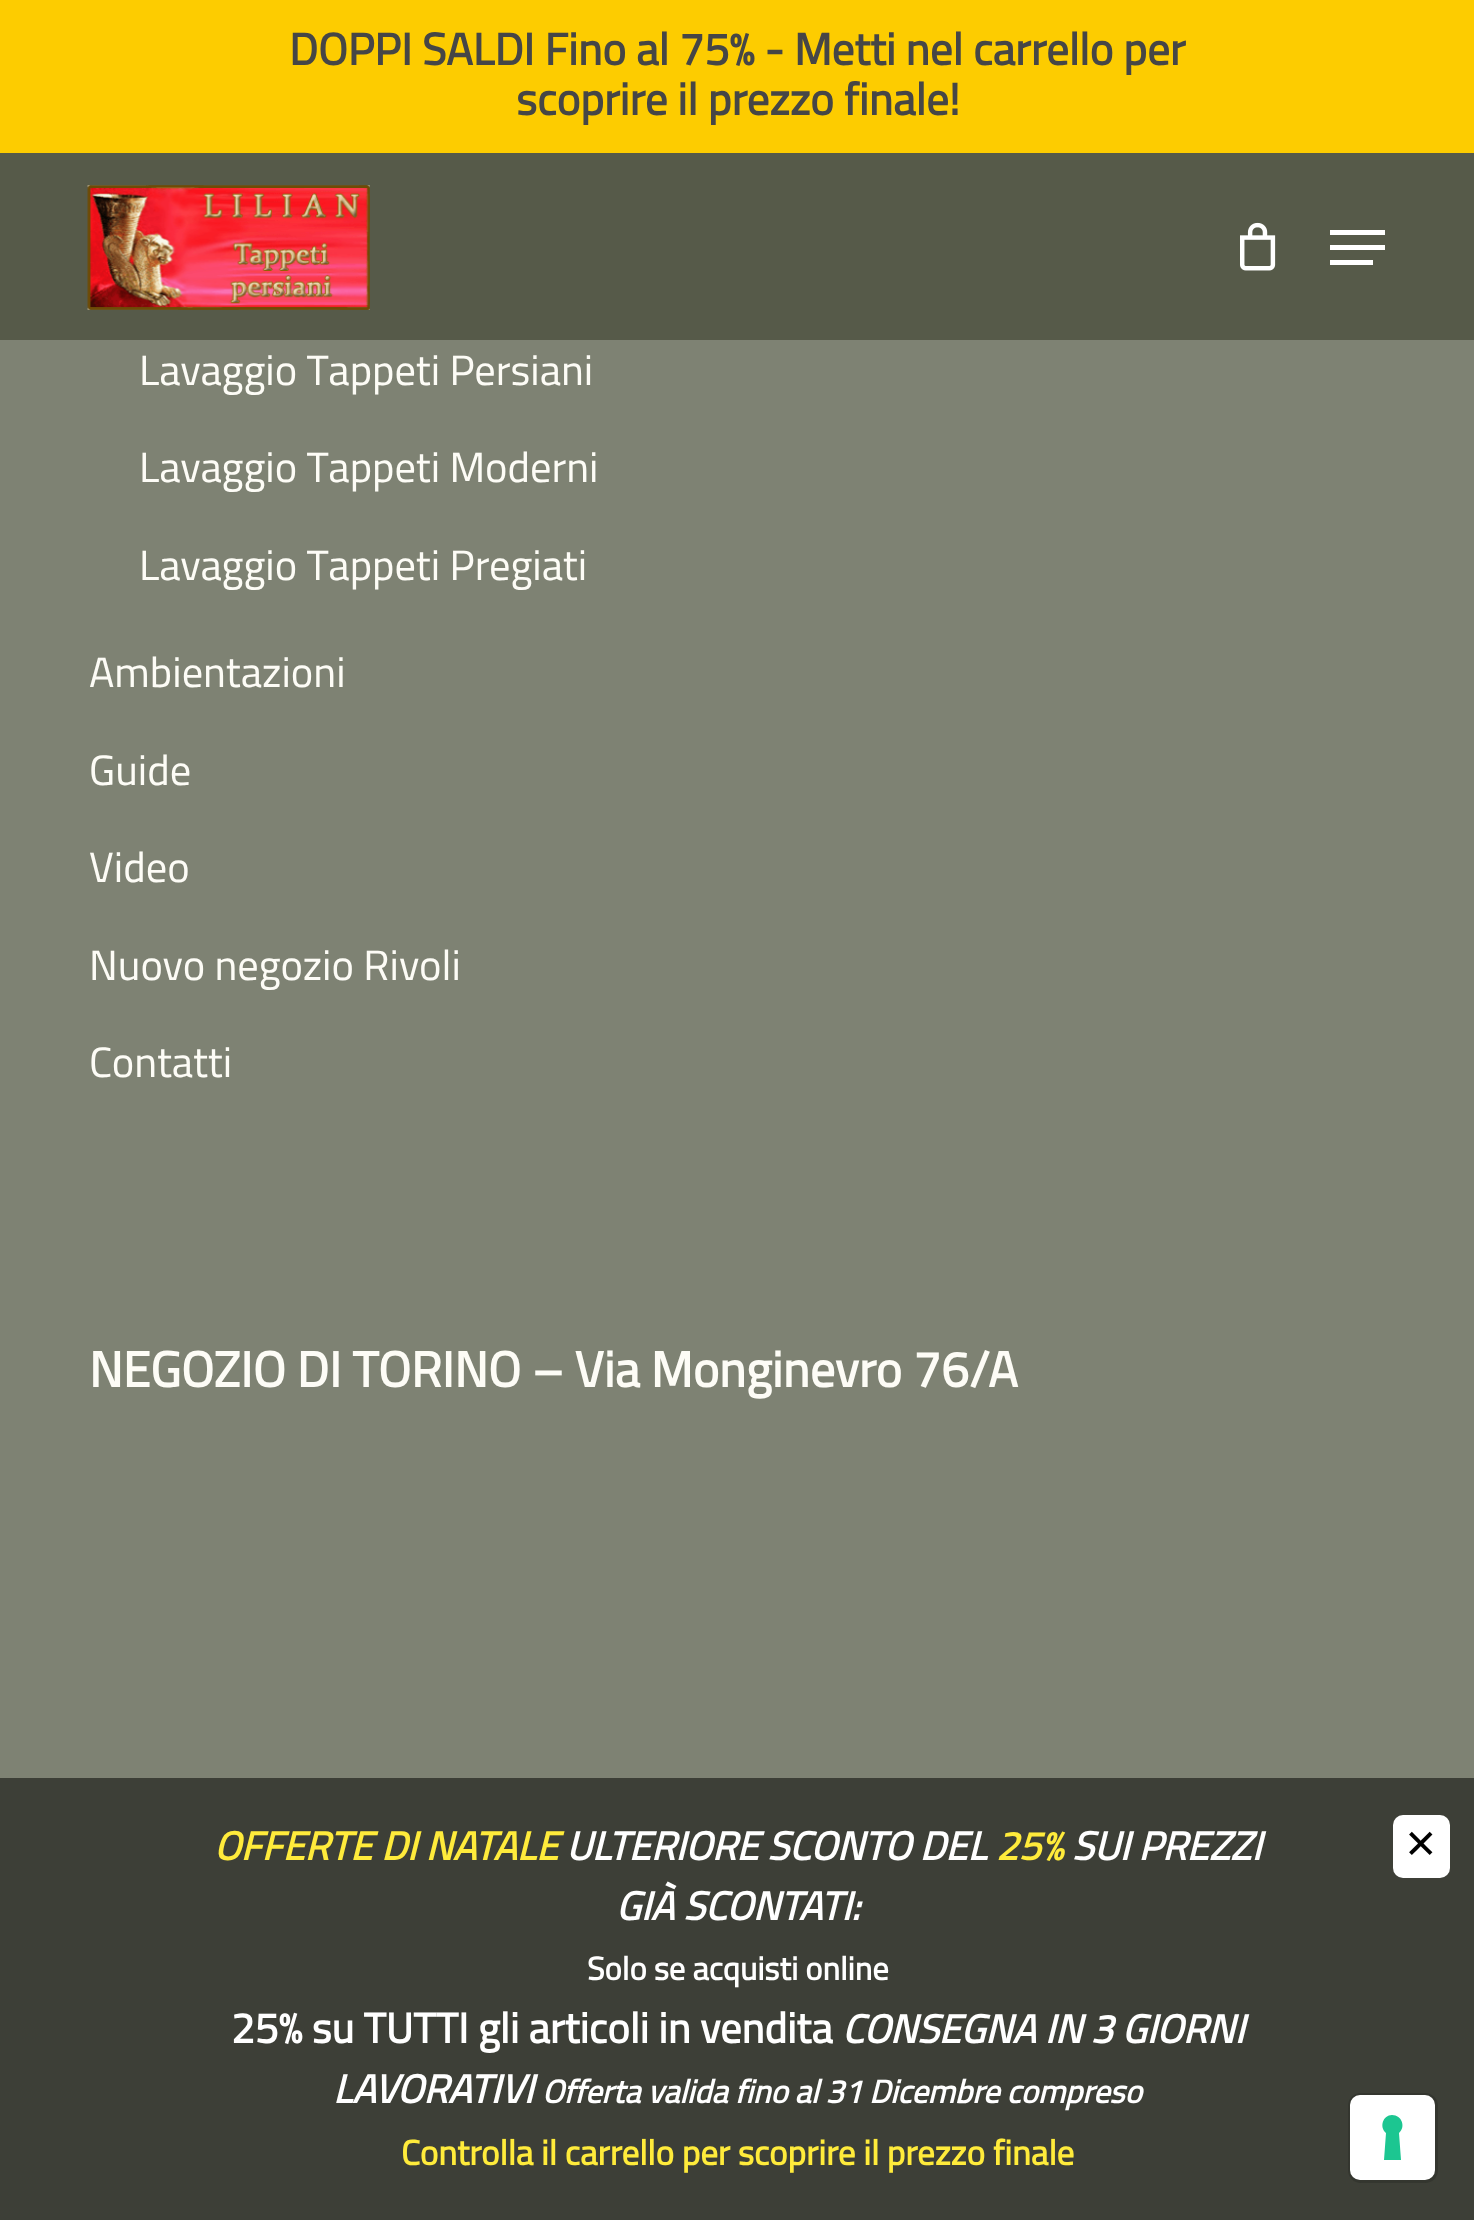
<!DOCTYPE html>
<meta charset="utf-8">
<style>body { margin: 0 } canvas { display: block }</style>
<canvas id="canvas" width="1474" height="2220"></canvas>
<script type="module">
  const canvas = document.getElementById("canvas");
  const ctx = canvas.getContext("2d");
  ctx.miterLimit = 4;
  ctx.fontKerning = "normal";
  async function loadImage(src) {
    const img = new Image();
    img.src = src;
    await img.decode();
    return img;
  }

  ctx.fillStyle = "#7e8273";
  ctx.fillRect(0, 0, 1474, 2220);
  ctx.fillStyle = "#fdcc00";
  ctx.fillRect(0, 0, 1474, 153);
  ctx.font = "bold 45px Cairo";
  ctx.fillStyle = "#464646";
  ctx.fillText("DOPPI SALDI Fino al 75% - Metti nel carrello per", 289, 65);
  ctx.fillText("scoprire il prezzo finale!", 516, 115);
  ctx.fillStyle = "#565a49";
  ctx.fillRect(0, 153, 1474, 187);
  ctx.drawImage(await loadImage("img1.png"), 87, 185, 283, 125);
  ctx.drawImage(await loadImage("img2.png"), 1240, 222, 36, 49);
  ctx.fillStyle = "#ffffff";
  ctx.fillRect(1330, 230, 55, 5);
  ctx.fillRect(1330, 260, 43, 5);
  ctx.fillRect(1330, 245, 55, 5);
  ctx.font = "42.5px Cairo";
  ctx.fillStyle = "#fdfcf6";
  ctx.fillText("Lavaggio Tappeti Persiani", 139, 385);
  ctx.fillText("Lavaggio Tappeti Moderni", 139, 482);
  ctx.fillText("Lavaggio Tappeti Pregiati", 139, 580);
  ctx.fillText("Ambientazioni", 89, 687);
  ctx.fillText("Guide", 89, 785);
  ctx.fillText("Video", 89, 882);
  ctx.fillText("Nuovo negozio Rivoli", 89, 980);
  ctx.fillText("Contatti", 89, 1077);
  ctx.font = "bold 50px Cairo";
  ctx.fillText("NEGOZIO DI TORINO – Via Monginevro 76/A", 89, 1387);
  ctx.fillStyle = "#3d3f37";
  ctx.fillRect(0, 1778, 1474, 442);
  ctx.font = "italic bold 40px Cairo";
  ctx.fillStyle = "#ffeb3b";
  ctx.fillText("OFFERTE DI NATALE", 214, 1860);
  ctx.fillStyle = "#ffffff";
  ctx.fillText("ULTERIORE SCONTO DEL", 566, 1860);
  ctx.fillStyle = "#ffeb3b";
  ctx.fillText("25%", 996, 1860);
  ctx.fillStyle = "#ffffff";
  ctx.fillText("SUI PREZZI", 1072, 1860);
  ctx.fillText("GIÀ SCONTATI:", 616, 1920);
  ctx.font = "bold 32.5px Cairo";
  ctx.fillText("Solo se acquisti online", 587, 1980);
  ctx.font = "bold 42.5px Cairo";
  ctx.fillText("25% su TUTTI gli articoli in vendita", 231, 2043);
  ctx.font = "italic bold 40px Cairo";
  ctx.fillText("CONSEGNA IN 3 GIORNI", 842, 2043);
  ctx.fillText("LAVORATIVI", 333, 2103);
  ctx.font = "italic bold 32.5px Cairo";
  ctx.fillText("Offerta valida fino al 31 Dicembre compreso", 542, 2103);
  ctx.font = "bold 35px Cairo";
  ctx.fillStyle = "#ffeb3b";
  ctx.fillText("Controlla il carrello per scoprire il prezzo finale", 401, 2165);
  ctx.fillStyle = "#ffffff";
  ctx.beginPath();
  ctx.roundRect(1393, 1815, 57, 63, 10);
  ctx.fill();
  ctx.font = "40px DejaVu Sans";
  ctx.fillStyle = "#000000";
  ctx.fillText("✕", 1404, 1858);
  ctx.beginPath();
  ctx.roundRect(1349.5, 2094.5, 87, 87, 11.5);
  ctx.strokeStyle = "#34362f";
  ctx.lineWidth = 3;
  ctx.stroke();
  ctx.fillStyle = "#ffffff";
  ctx.beginPath();
  ctx.roundRect(1350, 2095, 85, 85, 10);
  ctx.fill();
  ctx.fillStyle = "#1cc691";
  ctx.beginPath();
  ctx.moveTo(1392, 2115);
  ctx.bezierCurveTo(1402, 2115, 1406, 2127, 1399, 2133);
  ctx.lineTo(1401, 2160);
  ctx.lineTo(1384, 2160);
  ctx.lineTo(1386, 2133);
  ctx.bezierCurveTo(1379, 2127, 1383, 2115, 1392, 2115);
  ctx.closePath();
  ctx.fill("evenodd");
</script>
